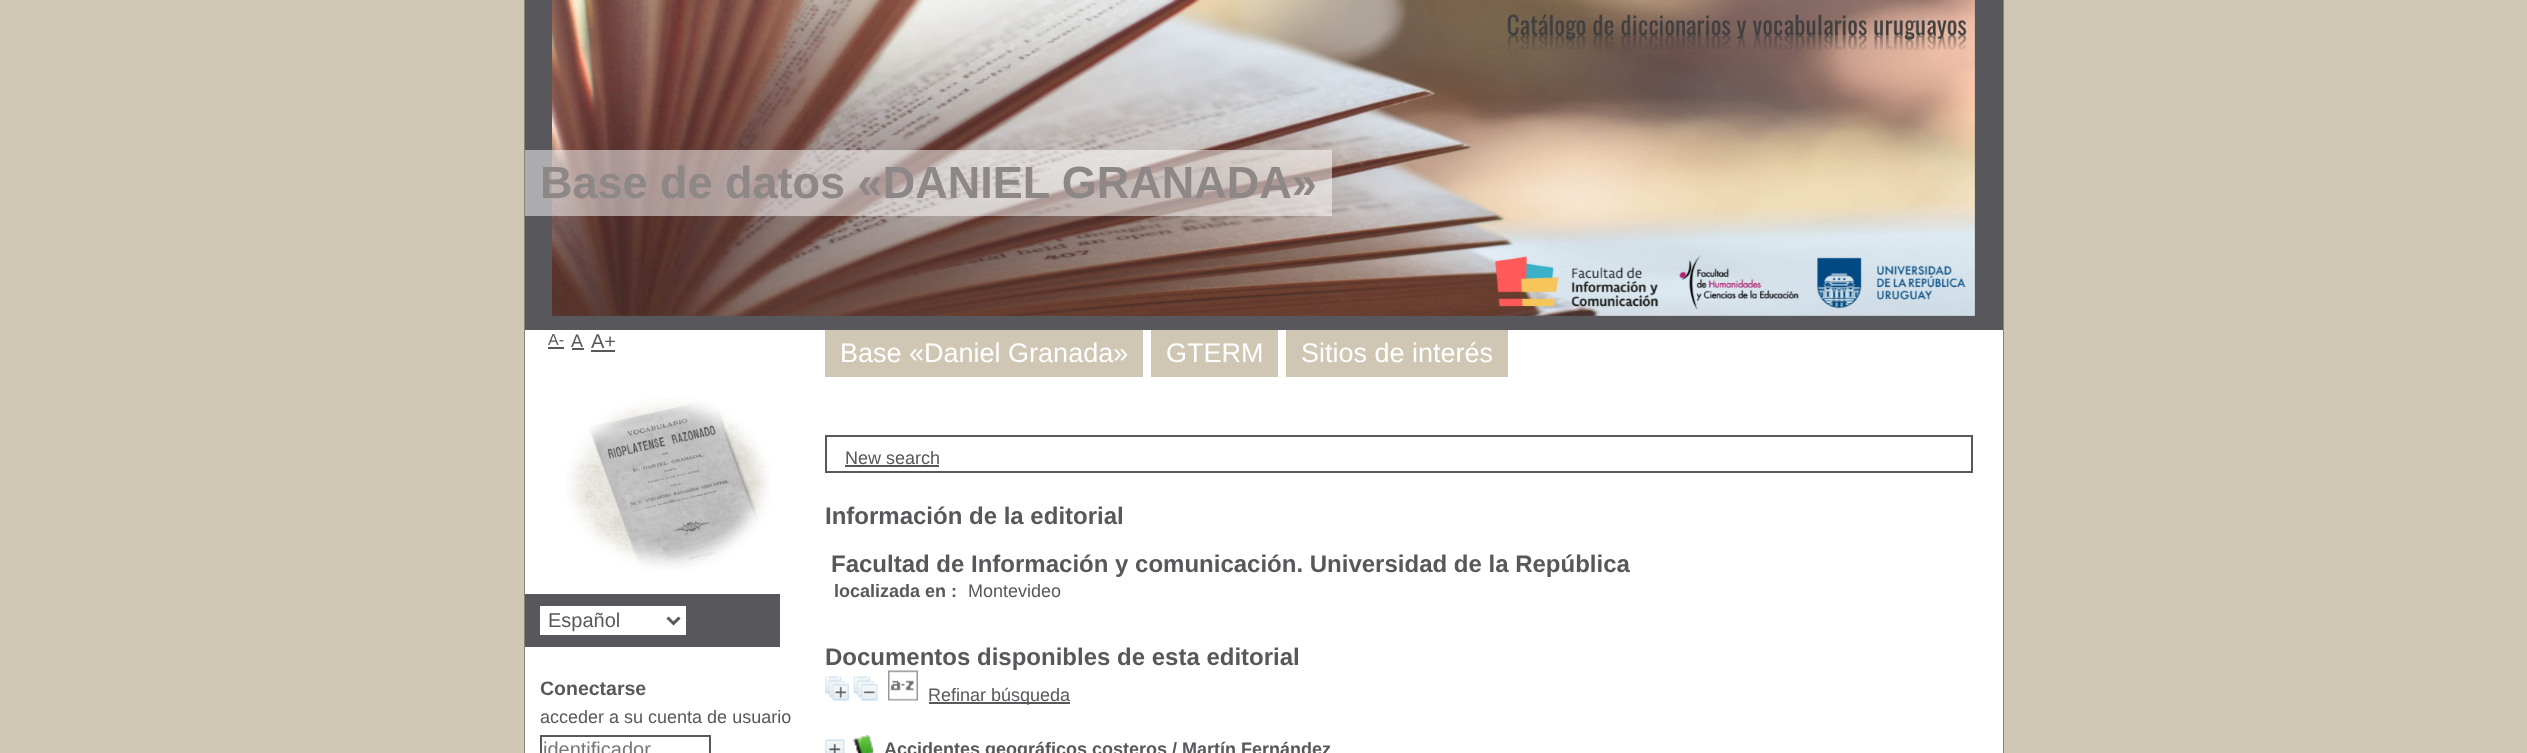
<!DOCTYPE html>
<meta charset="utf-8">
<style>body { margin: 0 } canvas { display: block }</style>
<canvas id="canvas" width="2527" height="753"></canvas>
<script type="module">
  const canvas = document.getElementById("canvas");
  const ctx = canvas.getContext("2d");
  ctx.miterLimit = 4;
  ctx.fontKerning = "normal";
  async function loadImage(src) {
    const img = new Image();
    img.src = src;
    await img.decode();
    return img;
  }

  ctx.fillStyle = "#d0c6b4";
  ctx.fillRect(0, 0, 2527, 753);
  ctx.strokeStyle = "#898377";
  ctx.lineWidth = 2;
  ctx.strokeRect(525, 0, 1478, 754);
  ctx.fillStyle = "#ffffff";
  ctx.fillRect(525, 330, 1478, 423);
  ctx.fillStyle = "#58585c";
  ctx.fillRect(525, 0, 1478, 330);
  ctx.drawImage(await loadImage("img7.png"), 552, 0, 1423, 316);
  ctx.fillStyle = "rgba(255, 255, 255, 0.5)";
  ctx.fillRect(525, 150, 807, 66);
  ctx.font = "bold 45px Liberation Sans";
  ctx.fillStyle = "#8d8787";
  ctx.fillText("Base de datos «DANIEL GRANADA»", 540, 198);
  ctx.strokeStyle = "#58585c";
  ctx.strokeRect(826, 436, 1146, 36);
  ctx.font = "18px Liberation Sans";
  ctx.fillStyle = "#58585c";
  ctx.fillText("New search", 845, 464);
  ctx.fillRect(845, 465, 94, 2);
  ctx.font = "bold 24px Liberation Sans";
  ctx.fillText("Información de la editorial", 825, 524);
  ctx.fillText("Facultad de Información y comunicación. Universidad de la República", 831, 572);
  ctx.font = "bold 18px Liberation Sans";
  ctx.fillText("localizada en :", 834, 597);
  ctx.font = "18px Liberation Sans";
  ctx.fillText("Montevideo", 968, 597);
  ctx.font = "bold 24px Liberation Sans";
  ctx.fillText("Documentos disponibles de esta editorial", 825, 665);
  ctx.drawImage(await loadImage("img1.png"), 825, 676, 24, 25);
  ctx.drawImage(await loadImage("img2.png"), 853, 676, 25, 25);
  ctx.drawImage(await loadImage("img3.png"), 888, 670, 30, 31);
  ctx.fillRect(929, 702, 141, 2);
  ctx.font = "18px Liberation Sans";
  ctx.fillText("Refinar búsqueda", 928, 701);
  ctx.drawImage(await loadImage("img4.png"), 825, 739, 20, 14);
  ctx.drawImage(await loadImage("img5.png"), 853, 735, 21, 18);
  ctx.font = "bold 18px Liberation Sans";
  ctx.fillText("Accidentes geográficos costeros / Martín Fernández", 884, 755);
  ctx.font = "16px Liberation Sans";
  ctx.fillText("A-", 548, 345);
  ctx.fillRect(548, 347, 16, 2);
  ctx.font = "18px Liberation Sans";
  ctx.fillText("A", 571, 347);
  ctx.fillRect(572, 348, 12, 2);
  ctx.font = "20px Liberation Sans";
  ctx.fillText("A+", 591, 348);
  ctx.fillRect(591, 350, 24, 2);
  ctx.drawImage(await loadImage("img6.png"), 566, 398, 205, 172);
  ctx.fillRect(525, 594, 255, 53);
  ctx.fillStyle = "#ffffff";
  ctx.fillRect(540, 606, 146, 29);
  ctx.beginPath();
  ctx.moveTo(667.5, 617.5);
  ctx.lineTo(673.5, 623.5);
  ctx.lineTo(679.5, 617.5);
  ctx.lineWidth = 3;
  ctx.stroke();
  ctx.fillStyle = "#58585c";
  ctx.fillText("Español", 548, 627);
  ctx.font = "bold 19.5px Liberation Sans";
  ctx.fillText("Conectarse", 540, 695);
  ctx.font = "18px Liberation Sans";
  ctx.fillText("acceder a su cuenta de usuario", 540, 723);
  ctx.lineWidth = 2;
  ctx.strokeRect(541, 736, 169, 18);
  ctx.font = "20px Liberation Sans";
  ctx.fillStyle = "#757575";
  ctx.fillText("identificador", 543, 756);
  ctx.fillStyle = "#d0c6b4";
  ctx.fillRect(825, 330, 318, 47);
  ctx.font = "27px Liberation Sans";
  ctx.fillStyle = "#ffffff";
  ctx.fillText("Base «Daniel Granada»", 840, 362);
  ctx.fillStyle = "#d0c6b4";
  ctx.fillRect(1151, 330, 127, 47);
  ctx.fillStyle = "#ffffff";
  ctx.fillText("GTERM", 1166, 362);
  ctx.fillStyle = "#d0c6b4";
  ctx.fillRect(1286, 330, 222, 47);
  ctx.fillStyle = "#ffffff";
  ctx.fillText("Sitios de interés", 1301, 362);
</script>
